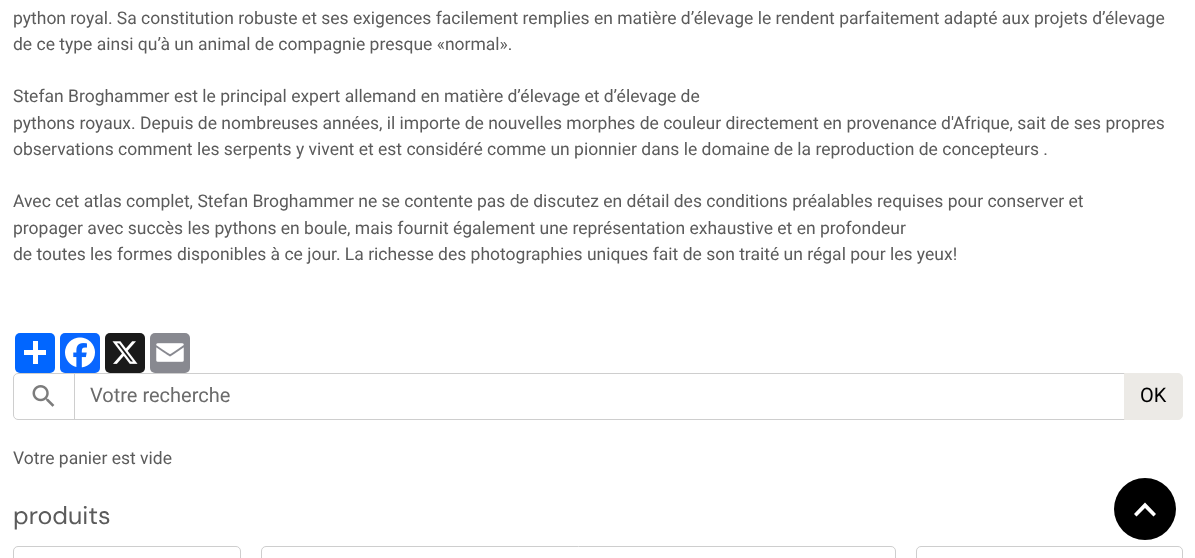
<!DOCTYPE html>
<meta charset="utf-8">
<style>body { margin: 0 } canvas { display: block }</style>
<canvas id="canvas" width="1195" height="558"></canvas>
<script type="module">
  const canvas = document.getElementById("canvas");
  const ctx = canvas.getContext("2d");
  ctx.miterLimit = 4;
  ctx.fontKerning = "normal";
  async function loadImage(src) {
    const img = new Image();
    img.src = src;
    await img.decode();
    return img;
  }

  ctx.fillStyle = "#ffffff";
  ctx.fillRect(0, 0, 1195, 558);
  ctx.font = "17.5px Roboto";
  ctx.fillStyle = "#5b5b5b";
  ctx.fillText("python royal. Sa constitution robuste et ses exigences facilement remplies en matière d’élevage le rendent parfaitement adapté aux projets d’élevage", 13, 24);
  ctx.fillText("de ce type ainsi qu’à un animal de compagnie presque «normal».", 13, 50);
  ctx.fillText("Stefan Broghammer est le principal expert allemand en matière d’élevage et d’élevage de", 13, 102);
  ctx.fillText("pythons royaux. Depuis de nombreuses années, il importe de nouvelles morphes de couleur directement en provenance d'Afrique, sait de ses propres", 13, 129);
  ctx.fillText("observations comment les serpents y vivent et est considéré comme un pionnier dans le domaine de la reproduction de concepteurs .", 13, 155);
  ctx.fillText("Avec cet atlas complet, Stefan Broghammer ne se contente pas de discutez en détail des conditions préalables requises pour conserver et", 13, 207);
  ctx.fillText("propager avec succès les pythons en boule, mais fournit également une représentation exhaustive et en profondeur", 13, 234);
  ctx.fillText("de toutes les formes disponibles à ce jour. La richesse des photographies uniques fait de son traité un régal pour les yeux!", 13, 260);
  ctx.fillStyle = "#0166ff";
  ctx.beginPath();
  ctx.roundRect(15, 333, 40, 40, 5);
  ctx.fill();
  ctx.fillStyle = "#ffffff";
  ctx.fillRect(33, 341, 5, 23);
  ctx.fillRect(24, 350, 22, 5);
  ctx.fillStyle = "#0866ff";
  ctx.beginPath();
  ctx.roundRect(60, 333, 40, 40, 5);
  ctx.fill();
  ctx.drawImage(await loadImage("img1.png"), 65, 337, 30, 31);
  ctx.fillStyle = "#1a1a1a";
  ctx.beginPath();
  ctx.roundRect(105, 333, 40, 40, 5);
  ctx.fill();
  ctx.drawImage(await loadImage("img2.png"), 112, 341, 26, 23);
  ctx.fillStyle = "#888990";
  ctx.beginPath();
  ctx.roundRect(150, 333, 40, 40, 5);
  ctx.fill();
  ctx.drawImage(await loadImage("img3.png"), 156, 343, 28, 19);
  ctx.beginPath();
  ctx.roundRect(13.5, 373.5, 61, 46, [4.5, 0, 0, 4.5]);
  ctx.strokeStyle = "#cecece";
  ctx.stroke();
  ctx.drawImage(await loadImage("img4.png"), 32, 385, 23, 22);
  ctx.strokeRect(74.5, 373.5, 1050, 46);
  ctx.font = "20px Roboto";
  ctx.fillStyle = "#6b6b6b";
  ctx.fillText("Votre recherche", 90, 402);
  ctx.fillStyle = "#eceae6";
  ctx.beginPath();
  ctx.roundRect(1124.5, 373.5, 58, 46, [0, 4.5, 4.5, 0]);
  ctx.fill();
  ctx.strokeStyle = "#eceae6";
  ctx.stroke();
  ctx.fillStyle = "#000000";
  ctx.fillText("OK", 1140, 402);
  ctx.font = "17.5px Roboto";
  ctx.fillStyle = "#5b5b5b";
  ctx.fillText("Votre panier est vide", 13, 464);
  ctx.font = "25px DM Sans";
  ctx.fillText("produits", 13, 524);
  ctx.beginPath();
  ctx.roundRect(13.5, 546.5, 227, 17, 4.5);
  ctx.strokeStyle = "#cecece";
  ctx.stroke();
  ctx.beginPath();
  ctx.roundRect(261.5, 546.5, 634, 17, 4.5);
  ctx.stroke();
  ctx.beginPath();
  ctx.roundRect(916.5, 546.5, 266, 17, 4.5);
  ctx.stroke();
  ctx.fillStyle = "#000000";
  ctx.beginPath();
  ctx.arc(1145, 509, 31, 0, Math.PI * 2);
  ctx.fill();
  ctx.fillStyle = "#ffffff";
  ctx.beginPath();
  ctx.moveTo(1145, 502.5);
  ctx.lineTo(1156, 514);
  ctx.lineTo(1153.5, 516.5);
  ctx.lineTo(1145, 508);
  ctx.lineTo(1136.5, 516.5);
  ctx.lineTo(1134, 514);
  ctx.closePath();
  ctx.fill();
</script>
